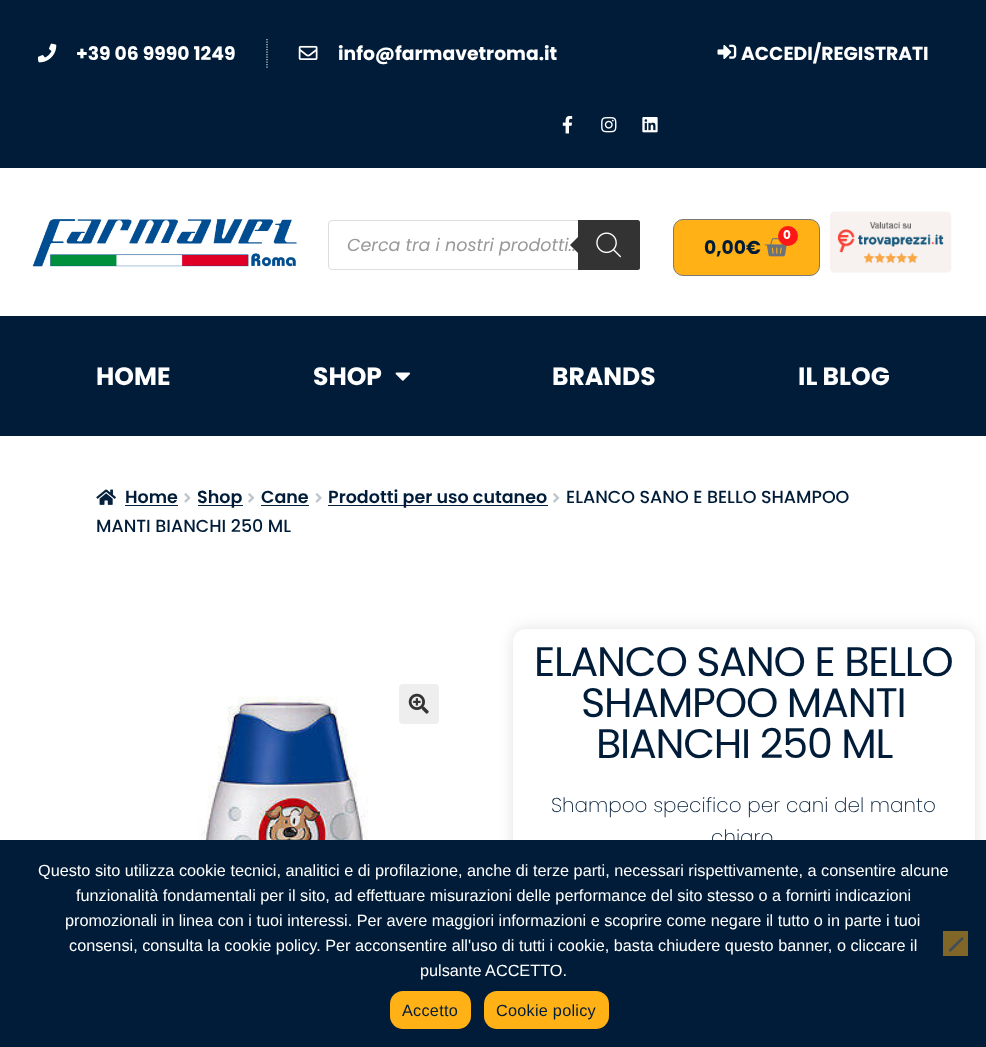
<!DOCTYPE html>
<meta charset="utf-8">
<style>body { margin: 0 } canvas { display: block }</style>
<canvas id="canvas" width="986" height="1047"></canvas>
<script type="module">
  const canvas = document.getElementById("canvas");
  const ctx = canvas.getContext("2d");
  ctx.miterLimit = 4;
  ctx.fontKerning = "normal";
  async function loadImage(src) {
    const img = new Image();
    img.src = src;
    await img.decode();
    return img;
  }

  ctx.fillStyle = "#ffffff";
  ctx.fillRect(0, 0, 986, 1047);
  ctx.fillStyle = "#001c38";
  ctx.fillRect(0, 0, 986, 168);
  ctx.drawImage(await loadImage("img1.png"), 38, 43, 19, 20);
  ctx.font = "bold 18.75px Poppins";
  ctx.fillStyle = "#ffffff";
  ctx.fillText("+39 06 9990 1249", 76, 60);
  ctx.beginPath();
  ctx.moveTo(267, 39);
  ctx.lineTo(267, 69);
  ctx.strokeStyle = "#dddddd";
  ctx.lineWidth = 1.2;
  ctx.setLineDash([1.25, 1.25]);
  ctx.stroke();
  ctx.drawImage(await loadImage("img2.png"), 298, 45, 20, 15);
  ctx.fillText("info@farmavetroma.it", 338, 60);
  ctx.drawImage(await loadImage("img3.png"), 717, 44, 20, 15);
  ctx.fillText("ACCEDI/REGISTRATI", 741, 60);
  ctx.drawImage(await loadImage("img4.png"), 562, 115, 11, 19);
  ctx.drawImage(await loadImage("img5.png"), 601, 117, 16, 16);
  ctx.drawImage(await loadImage("img6.png"), 642, 117, 16, 16);
  ctx.drawImage(await loadImage("img7.png"), 32, 219, 265, 48);
  ctx.beginPath();
  ctx.roundRect(328.5, 220.5, 311, 49, 3.5);
  ctx.lineWidth = 1;
  ctx.setLineDash([]);
  ctx.stroke();
  ctx.font = "italic 17.5px Poppins";
  ctx.fillStyle = "#999999";
  ctx.fillText("Cerca tra i nostri prodotti..", 347, 251);
  ctx.fillStyle = "#333333";
  ctx.beginPath();
  ctx.roundRect(578, 220, 62, 50, [0, 2.5, 2.5, 0]);
  ctx.fill();
  ctx.beginPath();
  ctx.moveTo(580, 235);
  ctx.lineTo(580, 255);
  ctx.lineTo(570, 245);
  ctx.closePath();
  ctx.fill();
  ctx.drawImage(await loadImage("img8.png"), 596, 232, 25, 26);
  ctx.fillStyle = "#ffb116";
  ctx.beginPath();
  ctx.roundRect(673.5, 219.5, 146, 56, 9.5);
  ctx.fill();
  ctx.strokeStyle = "#7a7a7a";
  ctx.stroke();
  ctx.drawImage(await loadImage("img9.png"), 764, 238, 25, 19);
  ctx.fillStyle = "#ff1616";
  ctx.beginPath();
  ctx.arc(788, 236, 10, 0, Math.PI * 2);
  ctx.fill();
  ctx.font = "bold 12px Poppins";
  ctx.fillStyle = "#ffffff";
  ctx.fillText("0", 783, 239);
  ctx.font = "bold 18.75px Poppins";
  ctx.fillStyle = "#001c38";
  ctx.fillText("0,00€", 704, 254);
  ctx.drawImage(await loadImage("img10.png"), 830, 211, 122, 62);
  ctx.fillRect(0, 316, 986, 120);
  ctx.font = "bold 25px Poppins";
  ctx.fillStyle = "#ffffff";
  ctx.fillText("HOME", 96, 385);
  ctx.fillText("SHOP", 313, 385);
  ctx.drawImage(await loadImage("img11.png"), 395, 372, 15, 9);
  ctx.fillText("BRANDS", 552, 385);
  ctx.fillText("IL BLOG", 798, 385);
  ctx.drawImage(await loadImage("img12.png"), 96, 489, 20, 16);
  ctx.font = "600 17.5px Poppins";
  ctx.fillStyle = "#001c38";
  ctx.fillText("Home", 125, 503);
  ctx.fillStyle = "#05213d";
  ctx.fillRect(125, 505, 53, 1);
  ctx.drawImage(await loadImage("img13.png"), 184, 493, 7, 10);
  ctx.fillRect(198, 505, 45, 1);
  ctx.fillStyle = "#001c38";
  ctx.fillText("Shop", 197, 503);
  ctx.drawImage(await loadImage("img14.png"), 248, 493, 7, 10);
  ctx.fillText("Cane", 261, 503);
  ctx.fillStyle = "#05213d";
  ctx.fillRect(261, 505, 48, 1);
  ctx.drawImage(await loadImage("img15.png"), 315, 493, 7, 10);
  ctx.fillRect(328, 505, 220, 1);
  ctx.fillStyle = "#001c38";
  ctx.fillText("Prodotti per uso cutaneo", 328, 503);
  ctx.drawImage(await loadImage("img14.png"), 553, 493, 7, 10);
  ctx.font = "500 17.5px Poppins";
  ctx.fillText("ELANCO SANO E BELLO SHAMPOO", 566, 503);
  ctx.fillText("MANTI BIANCHI 250 ML", 96, 532);
  ctx.drawImage(await loadImage("img16.png"), 159, 696, 209, 144);
  ctx.fillStyle = "#eeeeee";
  ctx.beginPath();
  ctx.roundRect(399, 684, 40, 40, 4);
  ctx.fill();
  ctx.drawImage(await loadImage("img17.png"), 408, 693, 21, 21);
  ctx.fillStyle = "rgba(0, 0, 0, 0.12)";
  ctx.filter = "blur(7.5px)";
  ctx.beginPath();
  ctx.roundRect(513, 629, 462, 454, 13);
  ctx.fill();
  ctx.filter = "none";
  ctx.fillStyle = "#ffffff";
  ctx.beginPath();
  ctx.roundRect(513, 629, 462, 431, 13);
  ctx.fill();
  ctx.letterSpacing = "-1.25px";
  ctx.font = "41.25px Poppins";
  ctx.fillStyle = "#001c38";
  ctx.fillText("ELANCO SANO E BELLO", 534, 676);
  ctx.fillText("SHAMPOO MANTI", 581, 717);
  ctx.fillText("BIANCHI 250 ML", 596, 758);
  ctx.letterSpacing = "0px";
  ctx.font = "200 20px Poppins";
  ctx.fillText("Shampoo specifico per cani del manto", 551, 812);
  ctx.fillText("chiaro", 711, 844);
  ctx.fillRect(0, 840, 986, 207);
  ctx.font = "16.25px Liberation Sans";
  ctx.fillStyle = "#ffffff";
  ctx.fillText("Questo sito utilizza cookie tecnici, analitici e di profilazione, anche di terze parti, necessari rispettivamente, a consentire alcune", 38, 876);
  ctx.fillText("funzionalità fondamentali per il sito, ad effettuare misurazioni delle performance del sito stesso o a fornirti indicazioni", 76, 901);
  ctx.fillText("promozionali in linea con i tuoi interessi. Per avere maggiori informazioni e scoprire come negare il tutto o in parte i tuoi", 65, 926);
  ctx.fillText("consensi, consulta la cookie policy. Per acconsentire all'uso di tutti i cookie, basta chiudere questo banner, o cliccare il", 69, 951);
  ctx.fillText("pulsante ACCETTO.", 420, 976);
  ctx.fillStyle = "#806727";
  ctx.fillRect(943, 931, 25, 25);
  ctx.fillStyle = "#404e5c";
  ctx.beginPath();
  ctx.moveTo(962, 937);
  ctx.lineTo(964, 938.5);
  ctx.lineTo(950.5, 952);
  ctx.lineTo(948.5, 950);
  ctx.closePath();
  ctx.fill();
  ctx.fillStyle = "#ffb116";
  ctx.beginPath();
  ctx.roundRect(390, 991, 81, 38, 13);
  ctx.fill();
  ctx.letterSpacing = "0.25px";
  ctx.fillStyle = "#001c38";
  ctx.fillText("Accetto", 402, 1016);
  ctx.fillStyle = "#ffb116";
  ctx.beginPath();
  ctx.roundRect(484, 991, 125, 38, 13);
  ctx.fill();
  ctx.fillStyle = "#001c38";
  ctx.fillText("Cookie policy", 496, 1016);
</script>
